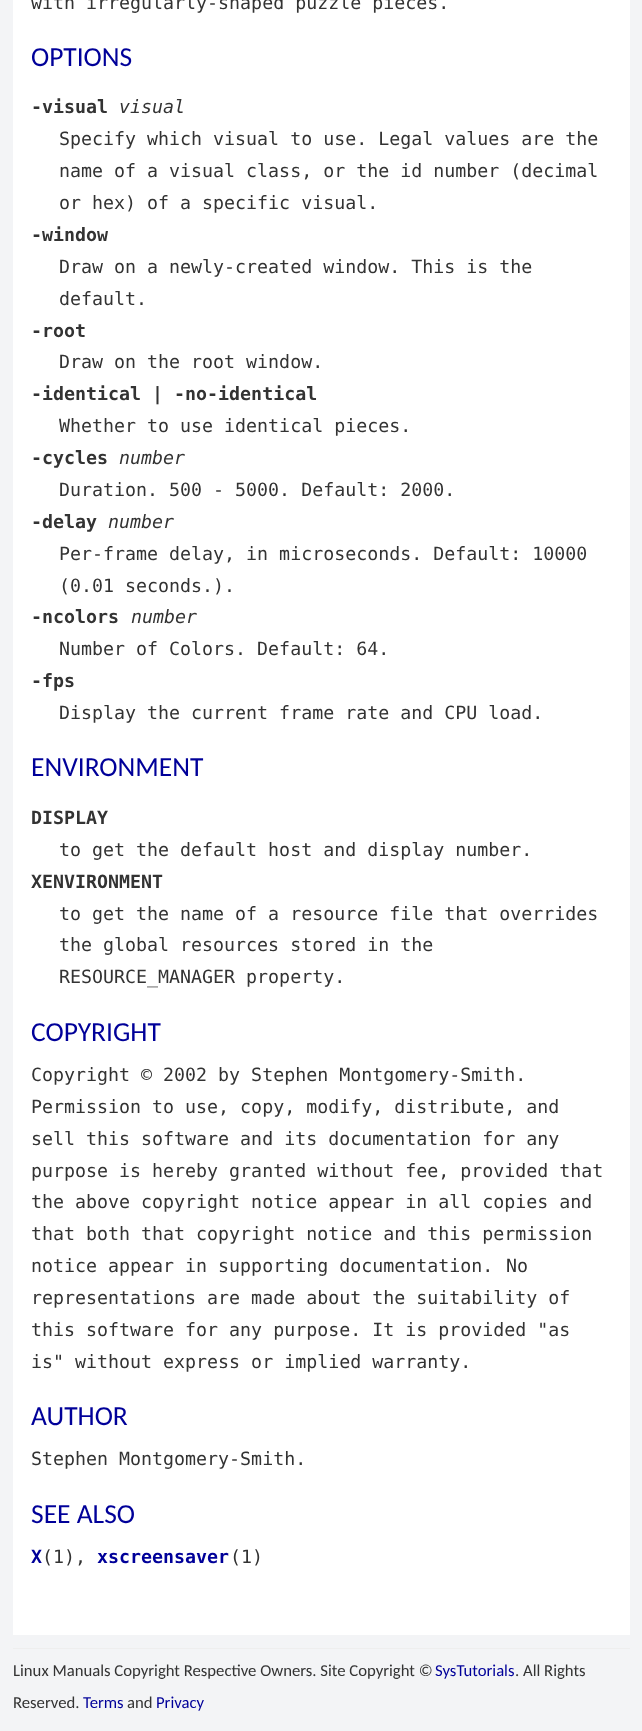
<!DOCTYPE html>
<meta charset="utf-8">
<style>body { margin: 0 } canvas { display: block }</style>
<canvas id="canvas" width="642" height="1731"></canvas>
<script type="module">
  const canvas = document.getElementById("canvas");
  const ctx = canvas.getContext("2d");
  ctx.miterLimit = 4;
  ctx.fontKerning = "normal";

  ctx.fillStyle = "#f3f4f6";
  ctx.fillRect(0, 0, 642, 1731);
  ctx.fillStyle = "#ffffff";
  ctx.fillRect(13, 0, 617, 1635);
  ctx.font = "18.3px DejaVu Sans Mono";
  ctx.fillStyle = "#333333";
  ctx.fillText("with irregularly-shaped puzzle pieces.", 31, 9);
  ctx.font = "27.5px Carlito";
  ctx.fillStyle = "#000099";
  ctx.fillText("OPTIONS", 31, 66);
  ctx.font = "bold 18.3px DejaVu Sans Mono";
  ctx.fillStyle = "#333333";
  ctx.fillText("-visual", 31, 113);
  ctx.font = "italic 18.3px DejaVu Sans Mono";
  ctx.fillText("visual", 119, 113);
  ctx.font = "18.3px DejaVu Sans Mono";
  ctx.fillText("Specify which visual to use. Legal values are the", 59, 145);
  ctx.fillText("name of a visual class, or the id number (decimal", 59, 177);
  ctx.fillText("or hex) of a specific visual.", 59, 209);
  ctx.font = "bold 18.3px DejaVu Sans Mono";
  ctx.fillText("-window", 31, 241);
  ctx.font = "18.3px DejaVu Sans Mono";
  ctx.fillText("Draw on a newly-created window. This is the", 59, 273);
  ctx.fillText("default.", 59, 305);
  ctx.font = "bold 18.3px DejaVu Sans Mono";
  ctx.fillText("-root", 31, 337);
  ctx.font = "18.3px DejaVu Sans Mono";
  ctx.fillText("Draw on the root window.", 59, 368);
  ctx.font = "bold 18.3px DejaVu Sans Mono";
  ctx.fillText("-identical | -no-identical", 31, 400);
  ctx.font = "18.3px DejaVu Sans Mono";
  ctx.fillText("Whether to use identical pieces.", 59, 432);
  ctx.font = "bold 18.3px DejaVu Sans Mono";
  ctx.fillText("-cycles", 31, 464);
  ctx.font = "italic 18.3px DejaVu Sans Mono";
  ctx.fillText("number", 119, 464);
  ctx.font = "18.3px DejaVu Sans Mono";
  ctx.fillText("Duration. 500 - 5000. Default: 2000.", 59, 496);
  ctx.font = "bold 18.3px DejaVu Sans Mono";
  ctx.fillText("-delay", 31, 528);
  ctx.font = "italic 18.3px DejaVu Sans Mono";
  ctx.fillText("number", 108, 528);
  ctx.font = "18.3px DejaVu Sans Mono";
  ctx.fillText("Per-frame delay, in microseconds. Default: 10000", 59, 560);
  ctx.fillText("(0.01 seconds.).", 59, 592);
  ctx.font = "bold 18.3px DejaVu Sans Mono";
  ctx.fillText("-ncolors", 31, 623);
  ctx.font = "italic 18.3px DejaVu Sans Mono";
  ctx.fillText("number", 131, 623);
  ctx.font = "18.3px DejaVu Sans Mono";
  ctx.fillText("Number of Colors. Default: 64.", 59, 655);
  ctx.font = "bold 18.3px DejaVu Sans Mono";
  ctx.fillText("-fps", 31, 687);
  ctx.font = "18.3px DejaVu Sans Mono";
  ctx.fillText("Display the current frame rate and CPU load.", 59, 719);
  ctx.font = "27.5px Carlito";
  ctx.fillStyle = "#000099";
  ctx.fillText("ENVIRONMENT", 31, 776);
  ctx.font = "bold 18.3px DejaVu Sans Mono";
  ctx.fillStyle = "#333333";
  ctx.fillText("DISPLAY", 31, 824);
  ctx.font = "18.3px DejaVu Sans Mono";
  ctx.fillText("to get the default host and display number.", 59, 856);
  ctx.font = "bold 18.3px DejaVu Sans Mono";
  ctx.fillText("XENVIRONMENT", 31, 888);
  ctx.font = "18.3px DejaVu Sans Mono";
  ctx.fillText("to get the name of a resource file that overrides", 59, 920);
  ctx.fillText("the global resources stored in the", 59, 951);
  ctx.fillText("RESOURCE_MANAGER property.", 59, 983);
  ctx.font = "27.5px Carlito";
  ctx.fillStyle = "#000099";
  ctx.fillText("COPYRIGHT", 31, 1041);
  ctx.font = "18.3px DejaVu Sans Mono";
  ctx.fillStyle = "#333333";
  ctx.fillText("Copyright © 2002 by Stephen Montgomery-Smith.", 31, 1081);
  ctx.fillText("Permission to use, copy, modify, distribute, and", 31, 1113);
  ctx.fillText("sell this software and its documentation for any", 31, 1145);
  ctx.fillText("purpose is hereby granted without fee, provided that", 31, 1177);
  ctx.fillText("the above copyright notice appear in all copies and", 31, 1208);
  ctx.fillText("that both that copyright notice and this permission", 31, 1240);
  ctx.fillText("notice appear in supporting documentation.", 31, 1272);
  ctx.fillText("No", 506, 1272);
  ctx.fillText("representations are made about the suitability of", 31, 1304);
  ctx.fillText("this software for any purpose. It is provided \"as", 31, 1336);
  ctx.fillText("is\" without express or implied warranty.", 31, 1368);
  ctx.font = "27.5px Carlito";
  ctx.fillStyle = "#000099";
  ctx.fillText("AUTHOR", 31, 1425);
  ctx.font = "18.3px DejaVu Sans Mono";
  ctx.fillStyle = "#333333";
  ctx.fillText("Stephen Montgomery-Smith.", 31, 1465);
  ctx.font = "27.5px Carlito";
  ctx.fillStyle = "#000099";
  ctx.fillText("SEE ALSO", 31, 1523);
  ctx.font = "bold 18.3px DejaVu Sans Mono";
  ctx.fillText("X", 31, 1563);
  ctx.font = "18.3px DejaVu Sans Mono";
  ctx.fillStyle = "#333333";
  ctx.fillText("(1),", 42, 1563);
  ctx.font = "bold 18.3px DejaVu Sans Mono";
  ctx.fillStyle = "#000099";
  ctx.fillText("xscreensaver", 97, 1563);
  ctx.font = "18.3px DejaVu Sans Mono";
  ctx.fillStyle = "#333333";
  ctx.fillText("(1)", 230, 1563);
  ctx.fillStyle = "#eeeeee";
  ctx.fillRect(13, 1648, 617, 1);
  ctx.font = "16.7px Carlito";
  ctx.fillStyle = "#333333";
  ctx.fillText("Linux Manuals Copyright Respective Owners. Site Copyright ©", 13, 1676);
  ctx.fillStyle = "#000099";
  ctx.fillText("SysTutorials", 435, 1676);
  ctx.fillStyle = "#333333";
  ctx.fillText(". All Rights", 515, 1676);
  ctx.fillText("Reserved.", 13, 1708);
  ctx.fillStyle = "#000099";
  ctx.fillText("Terms", 83, 1708);
  ctx.fillStyle = "#333333";
  ctx.fillText("and", 127, 1708);
  ctx.fillStyle = "#000099";
  ctx.fillText("Privacy", 156, 1708);
</script>
